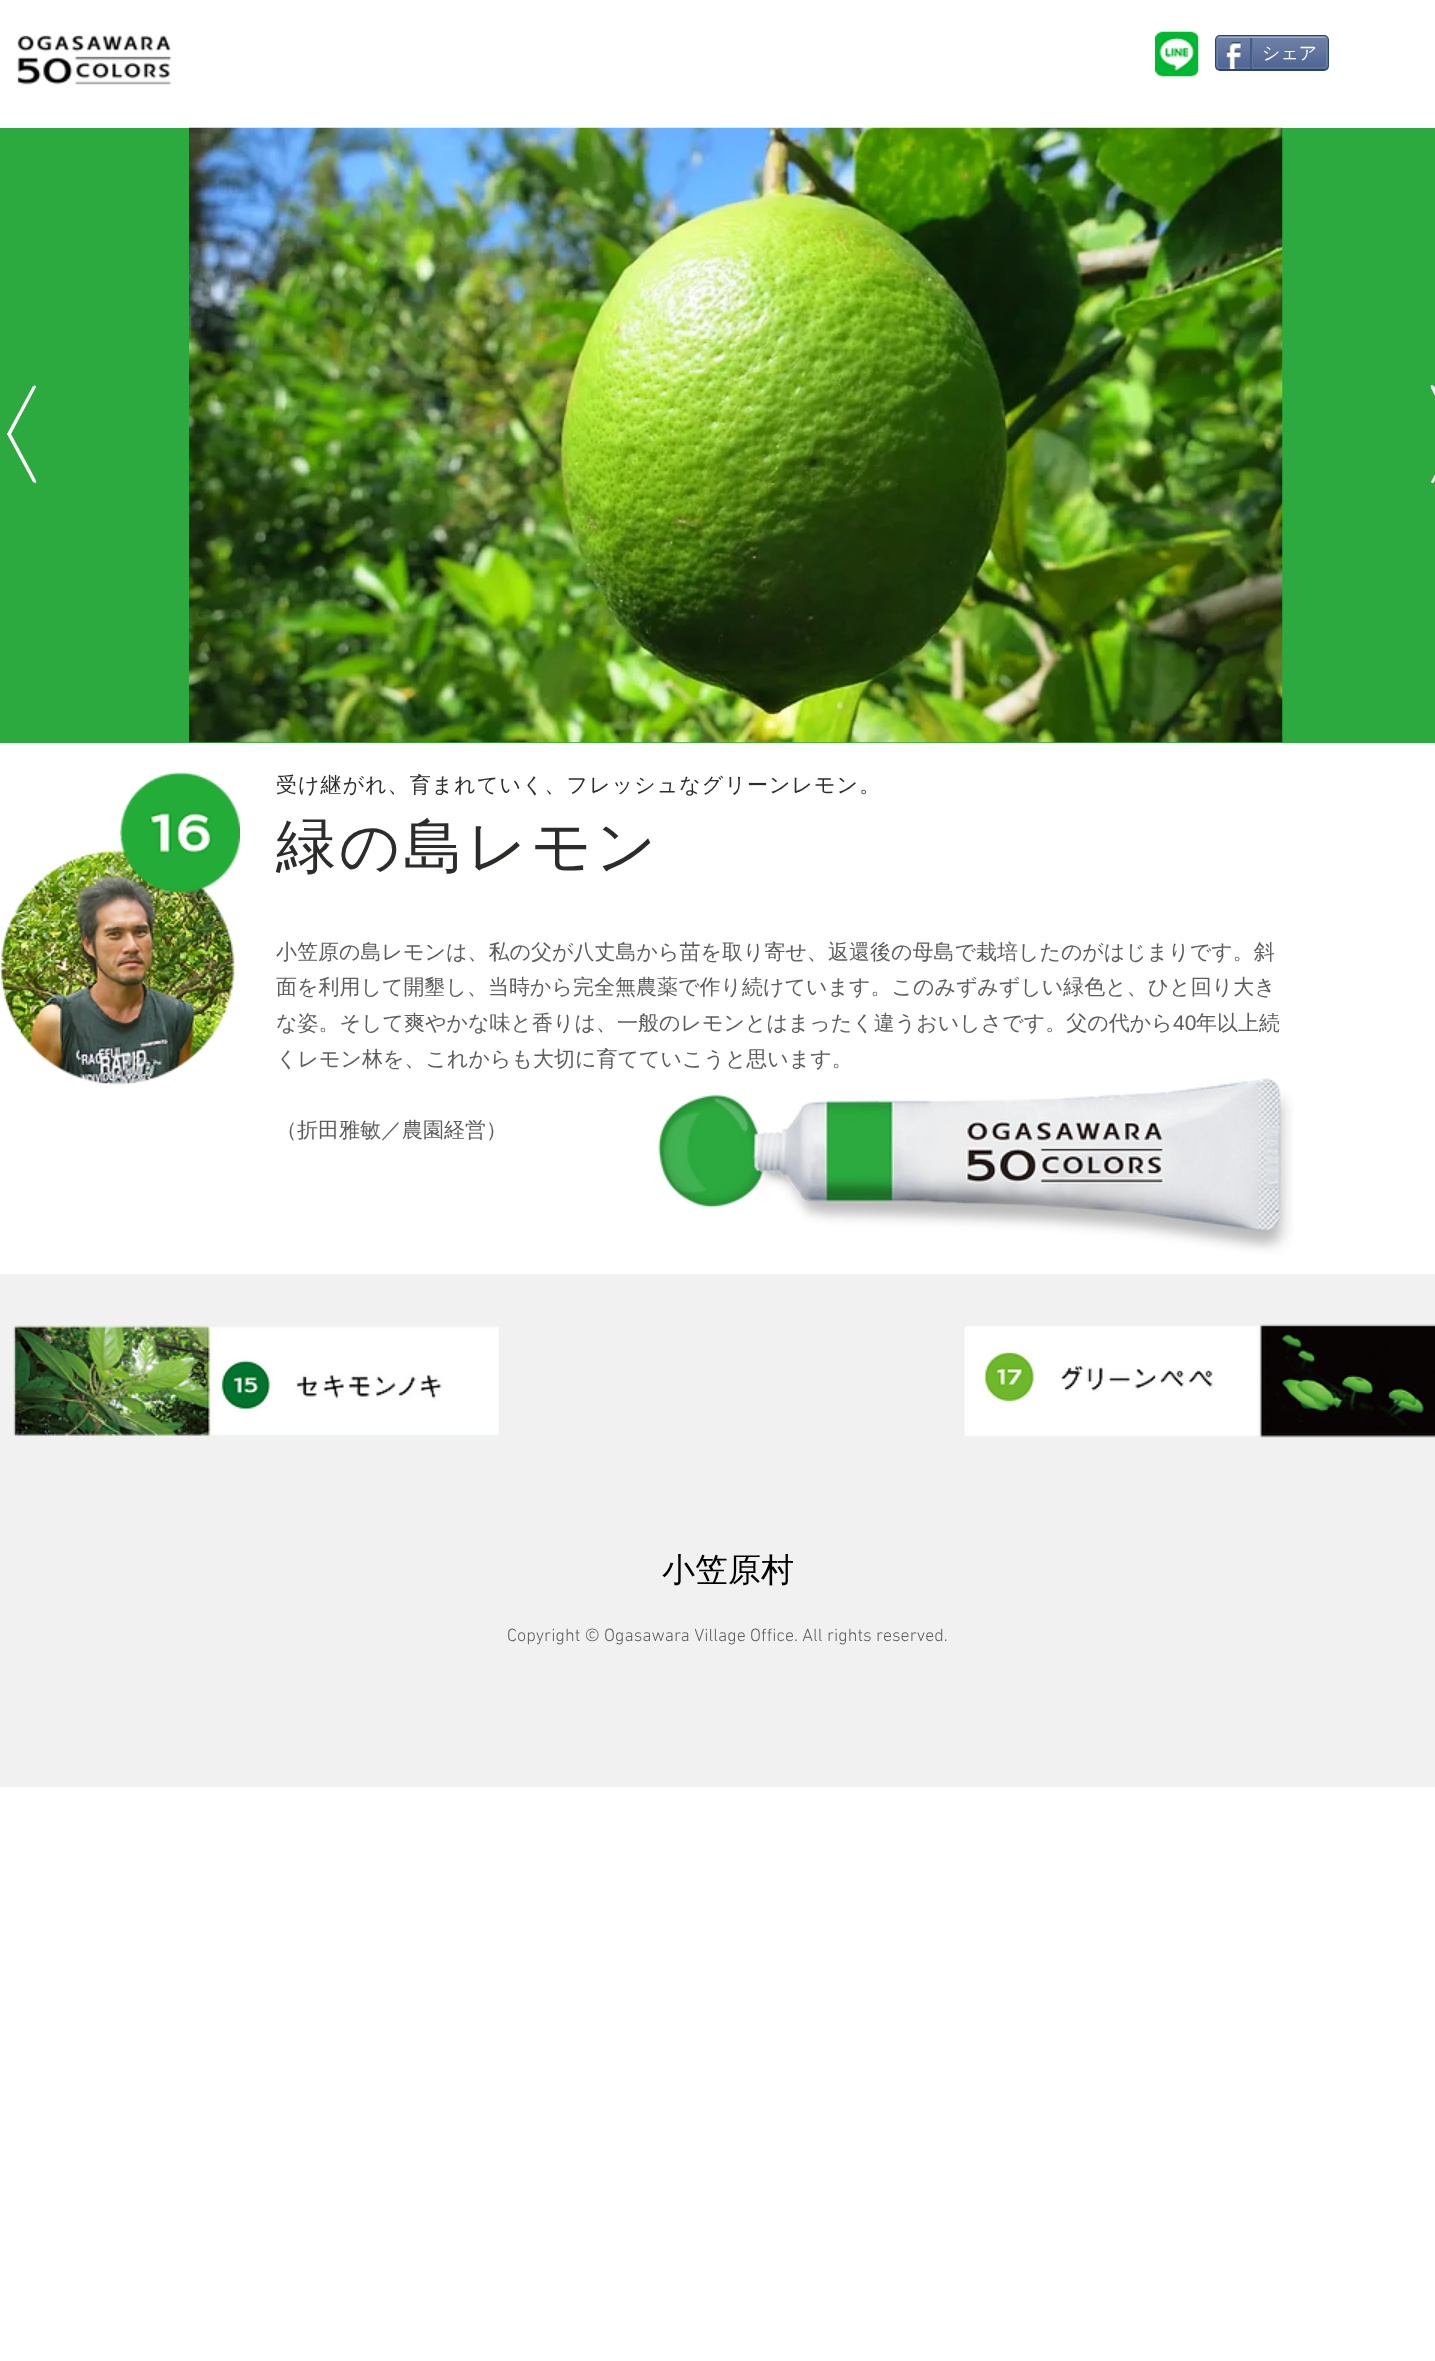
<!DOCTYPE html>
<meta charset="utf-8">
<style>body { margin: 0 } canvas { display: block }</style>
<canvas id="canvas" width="1435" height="2361"></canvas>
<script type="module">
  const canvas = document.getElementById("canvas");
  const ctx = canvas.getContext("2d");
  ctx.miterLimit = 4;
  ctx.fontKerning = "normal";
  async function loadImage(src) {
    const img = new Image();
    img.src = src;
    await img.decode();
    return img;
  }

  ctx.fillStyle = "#ffffff";
  ctx.fillRect(0, 0, 1435, 2361);
  ctx.drawImage(await loadImage("img1.png"), 17, 35, 155, 50);
  ctx.drawImage(await loadImage("img2.png"), 1155, 31, 44, 46);
  ctx.beginPath();
  ctx.roundRect(1216, 36, 112, 34, 4);
  ctx.strokeStyle = "#2d4565";
  ctx.lineWidth = 2;
  ctx.stroke();
  ctx.drawImage(await loadImage("img3.png"), 1216, 37, 112, 32);
  ctx.beginPath();
  ctx.moveTo(1218, 37.5);
  ctx.lineTo(1219.5, 37);
  ctx.lineTo(1324.5, 37);
  ctx.lineTo(1326, 37.5);
  ctx.strokeStyle = "#9aabc6";
  ctx.lineWidth = 1.5;
  ctx.stroke();
  ctx.beginPath();
  ctx.moveTo(1326, 37.5);
  ctx.bezierCurveTo(1326.5, 38, 1327, 38.5, 1327, 39);
  ctx.lineTo(1327, 66);
  ctx.bezierCurveTo(1327, 66.5, 1326.5, 67, 1326, 67.5);
  ctx.strokeStyle = "#6f83ad";
  ctx.stroke();
  ctx.beginPath();
  ctx.moveTo(1326, 67.5);
  ctx.lineTo(1324.5, 68);
  ctx.lineTo(1237, 68);
  ctx.lineTo(1219.5, 68);
  ctx.lineTo(1218, 67.5);
  ctx.strokeStyle = "#6176a3";
  ctx.stroke();
  ctx.beginPath();
  ctx.moveTo(1218, 67.5);
  ctx.bezierCurveTo(1217.5, 67, 1217, 66.5, 1217, 66);
  ctx.lineTo(1217, 39);
  ctx.bezierCurveTo(1217, 38.5, 1217.5, 38, 1218, 37.5);
  ctx.strokeStyle = "#6f83ad";
  ctx.stroke();
  ctx.drawImage(await loadImage("img4.png"), 1225, 42, 16, 27);
  ctx.fillStyle = "#425e85";
  ctx.fillRect(1250, 38, 2, 31);
  ctx.font = "500 18px WenQuanYi Zen Hei";
  ctx.fillStyle = "#ffffff";
  ctx.fillText("シェア", 1262, 59);
  ctx.fillStyle = "#6176a3";
  ctx.fillRect(1252, 38, 1, 30);
  ctx.fillStyle = "#2caa3f";
  ctx.fillRect(0, 128, 1435, 615);
  ctx.fillStyle = "#ffffff";
  ctx.beginPath();
  ctx.moveTo(35, 483);
  ctx.lineTo(33, 482);
  ctx.lineTo(7, 434);
  ctx.lineTo(33, 386);
  ctx.lineTo(34, 386);
  ctx.bezierCurveTo(35, 385, 36, 386, 36, 387);
  ctx.lineTo(11, 434);
  ctx.lineTo(32, 473);
  ctx.bezierCurveTo(35, 479, 38, 483, 35, 483);
  ctx.closePath();
  ctx.fill();
  ctx.drawImage(await loadImage("img5.png"), 189, 127, 1094, 616);
  ctx.beginPath();
  ctx.moveTo(1432, 385);
  ctx.lineTo(1434, 386);
  ctx.lineTo(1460, 434);
  ctx.lineTo(1434, 482);
  ctx.lineTo(1433, 483);
  ctx.bezierCurveTo(1432, 483, 1431, 482, 1431, 482);
  ctx.lineTo(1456, 434);
  ctx.lineTo(1435, 396);
  ctx.bezierCurveTo(1432, 389, 1429, 386, 1432, 385);
  ctx.closePath();
  ctx.fill();
  ctx.drawImage(await loadImage("img7.png"), 0, 850, 235, 235);
  ctx.drawImage(await loadImage("img6.png"), 120, 772, 120, 121);
  ctx.letterSpacing = "1.05px";
  ctx.font = "500 21px WenQuanYi Zen Hei";
  ctx.fillStyle = "#2c2c2b";
  ctx.fillText("受け継がれ、育まれていく、フレッシュなグリーンレモン。", 276, 792);
  ctx.letterSpacing = "3px";
  ctx.font = "500 60px WenQuanYi Zen Hei";
  ctx.fillText("緑の島レモン", 276, 867);
  ctx.letterSpacing = "0px";
  ctx.font = "500 21px WenQuanYi Zen Hei";
  ctx.fillStyle = "#5e5d5d";
  ctx.fillText("小笠原の島レモンは、私の父が八丈島から苗を取り寄せ、返還後の母島で栽培したのがはじまりです。斜", 276, 959);
  ctx.fillText("面を利用して開墾し、当時から完全無農薬で作り続けています。このみずみずしい緑色と、ひと回り大き", 276, 994);
  ctx.fillText("な姿。そして爽やかな味と香りは、一般のレモンとはまったく違うおいしさです。父の代から", 276, 1030);
  ctx.font = "21px Liberation Sans";
  ctx.fillText("40", 1173, 1030);
  ctx.font = "500 21px WenQuanYi Zen Hei";
  ctx.fillText("年以上続", 1196, 1030);
  ctx.fillText("くレモン林を、これからも大切に育てていこうと思います。", 276, 1066);
  ctx.fillText("（折田雅敏／農園経営）", 276, 1137);
  ctx.drawImage(await loadImage("img8.png"), 658, 1078, 636, 176);
  ctx.fillStyle = "#f1f1f1";
  ctx.fillRect(0, 1274, 1435, 513);
  ctx.drawImage(await loadImage("img9.png"), 13, 1325, 486, 111);
  ctx.drawImage(await loadImage("img10.png"), 964, 1324, 471, 114);
  ctx.font = "500 33px WenQuanYi Zen Hei";
  ctx.fillStyle = "#000000";
  ctx.fillText("小笠原村", 662, 1581);
  ctx.font = "300 18px 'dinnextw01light'";
  ctx.fillStyle = "#5e5d5d";
  ctx.fillText("Copyright © Ogasawara Village Office. All rights reserved.", 507, 1641);
</script>
